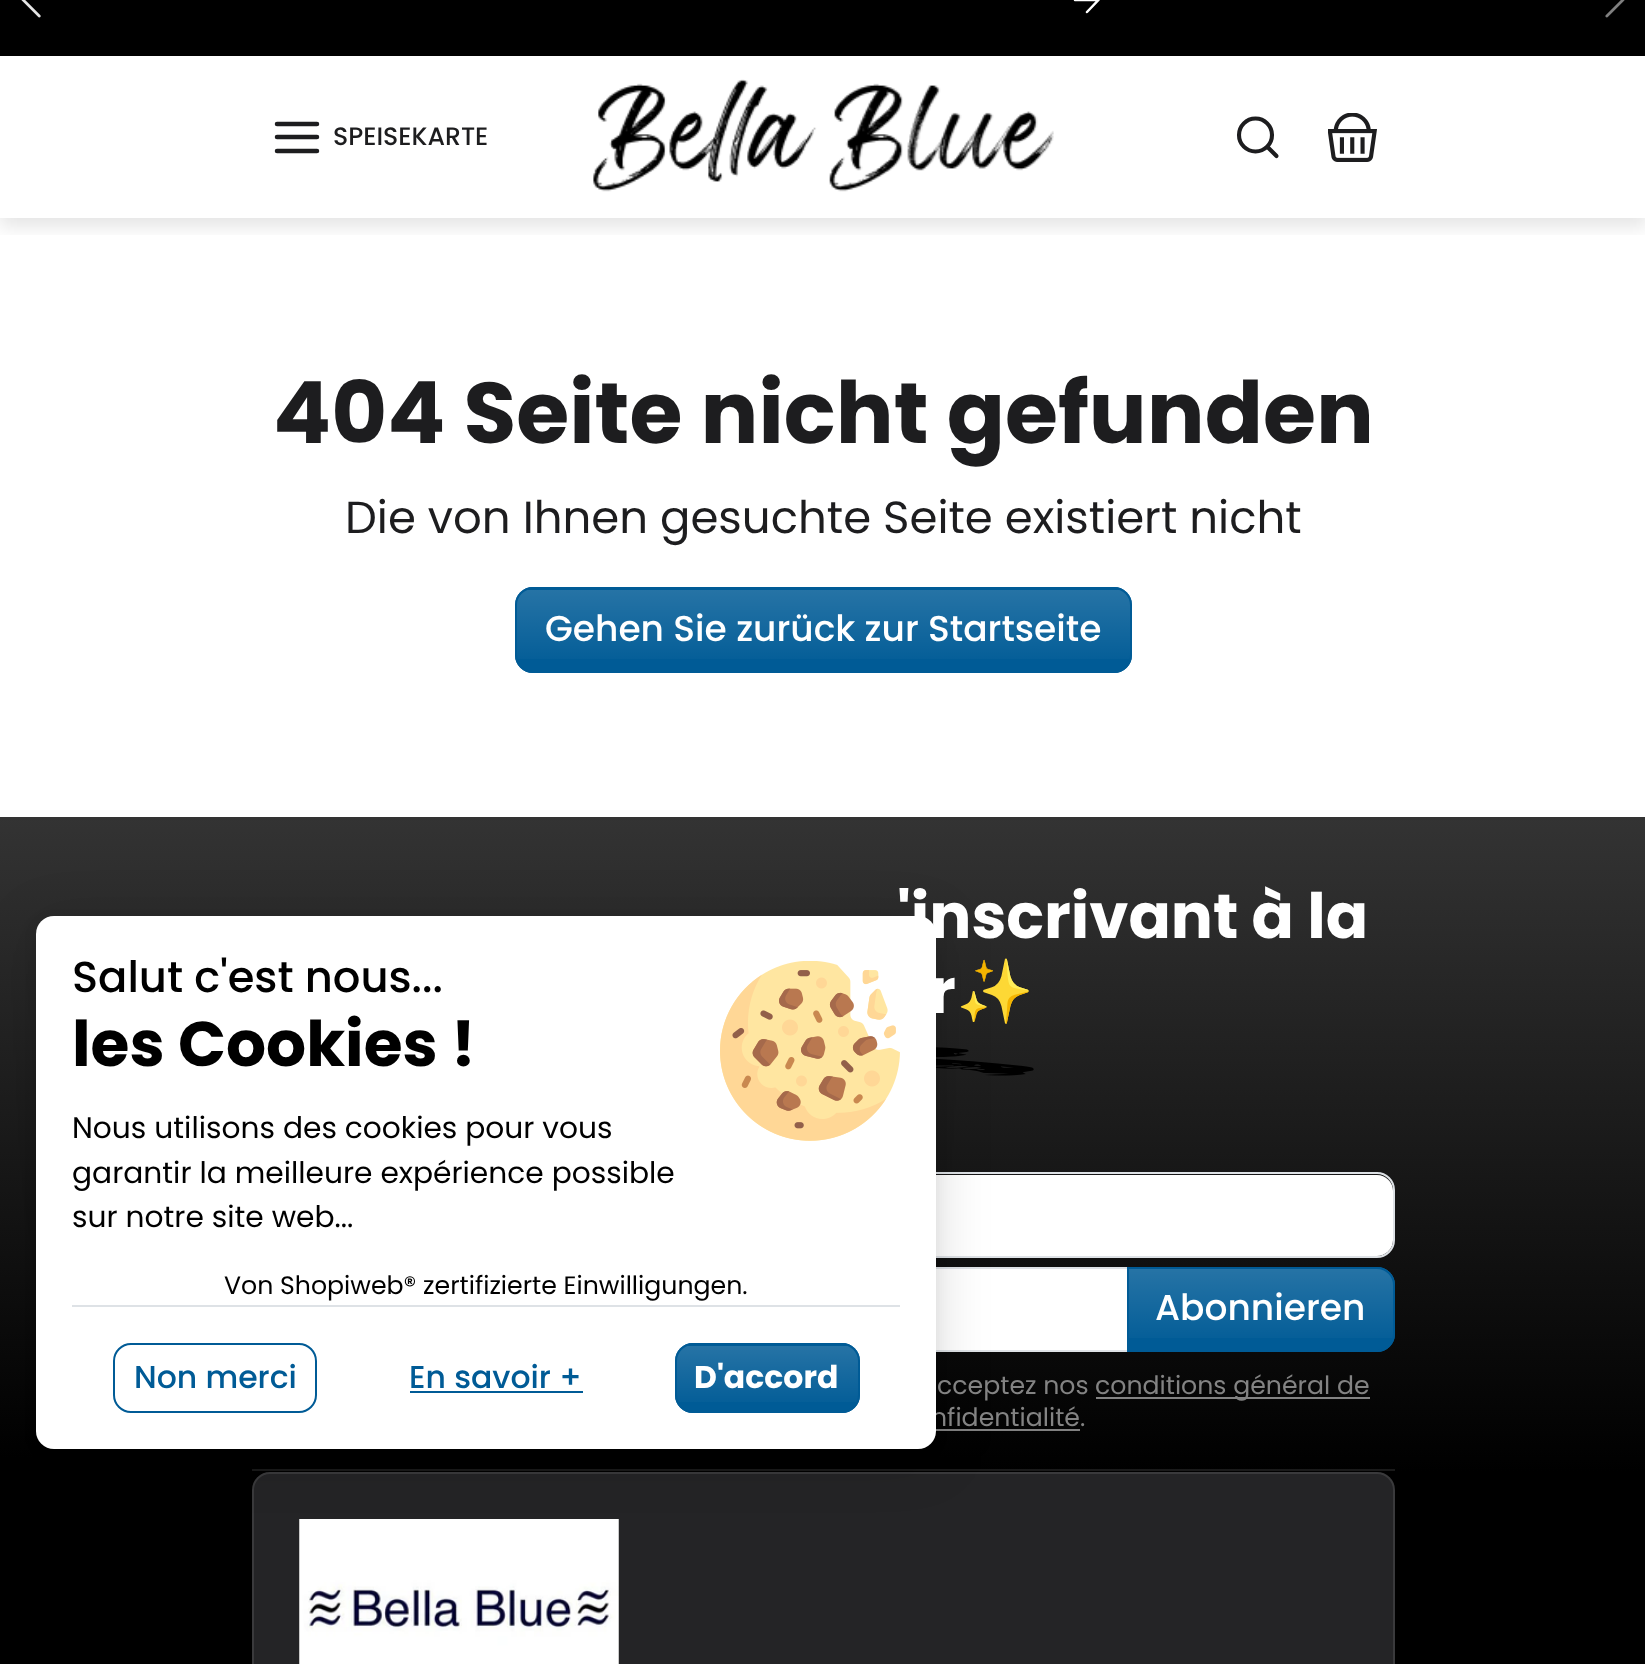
<!DOCTYPE html>
<meta charset="utf-8">
<style>body { margin: 0 } canvas { display: block }</style>
<canvas id="canvas" width="1645" height="1664"></canvas>
<script type="module">
  const canvas = document.getElementById("canvas");
  const ctx = canvas.getContext("2d");
  ctx.miterLimit = 4;
  ctx.fontKerning = "none";
  async function loadImage(src) {
    const img = new Image();
    img.src = src;
    await img.decode();
    return img;
  }
  let gradient;

  ctx.fillStyle = "#ffffff";
  ctx.fillRect(0, 0, 1645, 1664);
  ctx.fillStyle = "#000000";
  ctx.fillRect(0, 0, 1645, 56);
  ctx.drawImage(await loadImage("img1.png"), 21, 0, 20, 18);
  ctx.beginPath();
  ctx.moveTo(1075, 0);
  ctx.lineTo(1097, 0);
  ctx.moveTo(1087, -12);
  ctx.lineTo(1098.5, 0);
  ctx.lineTo(1087, 12);
  ctx.strokeStyle = "#ffffff";
  ctx.lineWidth = 2.5;
  ctx.lineCap = "round";
  ctx.lineJoin = "round";
  ctx.stroke();
  ctx.drawImage(await loadImage("img2.png"), 1605, 0, 20, 18);
  ctx.save();
  ctx.beginPath();
  ctx.rect(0, 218, 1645, 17);
  ctx.clip();
  ctx.fillStyle = "rgba(0, 0, 0, 0.1)";
  ctx.filter = "blur(9px)";
  ctx.beginPath();
  ctx.rect(0, 65, 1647, 162);
  ctx.fill();
  ctx.filter = "none";
  ctx.restore();
  ctx.beginPath();
  ctx.moveTo(277, 137);
  ctx.lineTo(317, 137);
  ctx.moveTo(277, 124);
  ctx.lineTo(317, 124);
  ctx.moveTo(277, 151);
  ctx.lineTo(317, 151);
  ctx.strokeStyle = "#1d1d1f";
  ctx.lineWidth = 4.5;
  ctx.stroke();
  ctx.font = "500 25.2px Poppins";
  ctx.fillStyle = "#1d1d1f";
  ctx.fillText("SPEISEKARTE", 333, 145);
  ctx.drawImage(await loadImage("img3.png"), 593, 79, 461, 113);
  ctx.beginPath();
  ctx.arc(1255.5, 135, 16.5, 0, Math.PI * 2);
  ctx.lineWidth = 4.1;
  ctx.stroke();
  ctx.beginPath();
  ctx.moveTo(1276.5, 156);
  ctx.lineTo(1267.5, 147);
  ctx.stroke();
  ctx.drawImage(await loadImage("img4.png"), 1328, 113, 49, 49);
  ctx.font = "bold 85.9px Poppins";
  ctx.fillText("404 Seite nicht gefunden", 273, 443);
  ctx.font = "45px Poppins";
  ctx.fillText("Die von Ihnen gesuchte Seite existiert nicht", 345, 533);
  ctx.fillStyle = "#005b96";
  ctx.beginPath();
  ctx.roundRect(515, 587, 617, 86, 18);
  ctx.fill();
  ctx.save();
  ctx.beginPath();
  ctx.roundRect(515, 587, 617, 86, 18);
  ctx.clip();
  gradient = ctx.createLinearGradient(824, 590, 824, 671);
  gradient.addColorStop(0, "rgba(255, 255, 255, 0.15)");
  gradient.addColorStop(1, "rgba(255, 255, 255, 0)");
  ctx.fillStyle = gradient;
  ctx.fillRect(515, 590, 617, 69);
  ctx.restore();
  ctx.beginPath();
  ctx.roundRect(516, 588, 615, 84, 17);
  ctx.strokeStyle = "#005b96";
  ctx.lineWidth = 2;
  ctx.lineJoin = "miter";
  ctx.stroke();
  ctx.font = "500 36px Poppins";
  ctx.fillStyle = "#ffffff";
  ctx.fillText("Gehen Sie zurück zur Startseite", 545, 641);
  gradient = ctx.createLinearGradient(824, 817, 824, 1472);
  gradient.addColorStop(0, "#333333");
  gradient.addColorStop(1, "#000000");
  ctx.fillStyle = gradient;
  ctx.fillRect(0, 817, 1645, 655);
  ctx.fillStyle = "#1a1a1a";
  ctx.fillRect(252, 1469, 1143, 2);
  ctx.drawImage(await loadImage("img6.png"), 936, 1047, 98, 29);
  ctx.fillStyle = "#ffffff";
  ctx.beginPath();
  ctx.roundRect(254, 1175, 1139, 81, 16);
  ctx.fill();
  ctx.beginPath();
  ctx.roundRect(253, 1173, 1141, 84, 17);
  ctx.strokeStyle = "#dee2e6";
  ctx.stroke();
  ctx.fillRect(936, 1269, 191, 81);
  ctx.strokeRect(253, 1268, 876, 83);
  ctx.fillStyle = "#818181";
  ctx.fillRect(936, 1429, 144, 2);
  ctx.fillStyle = "#000000";
  ctx.fillRect(0, 1472, 1645, 192);
  ctx.fillStyle = "#242426";
  ctx.beginPath();
  ctx.roundRect(252, 1472, 1143, 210, 18);
  ctx.fill();
  ctx.beginPath();
  ctx.roundRect(253, 1473, 1141, 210, 17);
  ctx.strokeStyle = "rgba(255, 255, 255, 0.1)";
  ctx.stroke();
  ctx.fillStyle = "rgba(0, 0, 0, 0.05)";
  ctx.filter = "blur(7px)";
  ctx.beginPath();
  ctx.roundRect(36, 920, 900, 534, 18);
  ctx.fill();
  ctx.filter = "none";
  ctx.drawImage(await loadImage("img7.png"), 299, 1519, 320, 145);
  ctx.fillStyle = "rgba(0, 0, 0, 0.15)";
  ctx.filter = "blur(27px)";
  ctx.beginPath();
  ctx.roundRect(36, 925, 900, 533, 18);
  ctx.fill();
  ctx.filter = "none";
  ctx.font = "25.2px Poppins";
  ctx.fillStyle = "#838383";
  ctx.fillText("nfidentialité", 931, 1426);
  ctx.fillStyle = "#ffffff";
  ctx.beginPath();
  ctx.roundRect(36, 916, 900, 533, 18);
  ctx.fill();
  ctx.font = "500 43.25px Poppins";
  ctx.fillStyle = "#000000";
  ctx.fillText("Salut c'est nous...", 72, 992);
  ctx.font = "bold 63px Poppins";
  ctx.fillText("les Cookies !", 72, 1066);
  ctx.drawImage(await loadImage("img5.png"), 720, 961, 180, 180);
  ctx.font = "29.7px Poppins";
  ctx.fillText("Nous utilisons des cookies pour vous", 72, 1138);
  ctx.fillText("garantir la meilleure expérience possible", 72, 1183);
  ctx.fillText("sur notre site web...", 72, 1227);
  ctx.fillStyle = "#dee2e6";
  ctx.fillRect(72, 1305, 828, 2);
  ctx.font = "25.2px Poppins";
  ctx.fillStyle = "#000000";
  ctx.fillText("Von Shopiweb® zertifizierte Einwilligungen.", 224, 1294);
  ctx.beginPath();
  ctx.roundRect(114, 1344, 202, 68, 17);
  ctx.strokeStyle = "#005b96";
  ctx.stroke();
  ctx.font = "500 31.5px Poppins";
  ctx.fillStyle = "#005b96";
  ctx.fillText("Non merci", 134, 1388);
  ctx.fillText("En savoir +", 409, 1388);
  ctx.fillRect(410, 1391, 173, 2);
  ctx.beginPath();
  ctx.roundRect(675, 1343, 185, 70, 18);
  ctx.fill();
  ctx.save();
  ctx.beginPath();
  ctx.roundRect(675, 1343, 185, 70, 18);
  ctx.clip();
  gradient = ctx.createLinearGradient(767, 1346, 767, 1411);
  gradient.addColorStop(0, "rgba(255, 255, 255, 0.15)");
  gradient.addColorStop(1, "rgba(255, 255, 255, 0)");
  ctx.fillStyle = gradient;
  ctx.fillRect(675, 1346, 185, 56);
  ctx.restore();
  ctx.beginPath();
  ctx.roundRect(676, 1344, 183, 68, 17);
  ctx.stroke();
  ctx.font = "bold 31.5px Poppins";
  ctx.fillStyle = "#ffffff";
  ctx.fillText("D'accord", 694, 1388);
  ctx.font = "bold 62.5px Poppins";
  ctx.fillText("'inscrivant à la", 897, 938);
  ctx.fillText("r", 929, 1013);
  ctx.font = "bold 62.5px Noto Color Emoji";
  ctx.fillText("✨", 956, 1013);
  ctx.fillStyle = "#005b96";
  ctx.beginPath();
  ctx.roundRect(1127, 1267, 268, 85, [0, 18, 18, 0]);
  ctx.fill();
  ctx.save();
  ctx.beginPath();
  ctx.roundRect(1127, 1267, 268, 85, [0, 18, 18, 0]);
  ctx.clip();
  gradient = ctx.createLinearGradient(1261, 1269, 1261, 1350);
  gradient.addColorStop(0, "rgba(255, 255, 255, 0.15)");
  gradient.addColorStop(1, "rgba(255, 255, 255, 0)");
  ctx.fillStyle = gradient;
  ctx.fillRect(1129, 1269, 266, 69);
  ctx.restore();
  ctx.beginPath();
  ctx.roundRect(1128, 1268, 266, 83, [0, 17, 17, 0]);
  ctx.stroke();
  ctx.font = "500 36px Poppins";
  ctx.fillStyle = "#ffffff";
  ctx.fillText("Abonnieren", 1155, 1320);
  ctx.font = "25.2px Poppins";
  ctx.fillStyle = "#838383";
  ctx.fillText("cceptez nos", 937, 1394);
  ctx.fillRect(1096, 1397, 274, 2);
  ctx.fillText("conditions général de", 1095, 1394);
  ctx.fillText(".", 1080, 1426);
</script>
